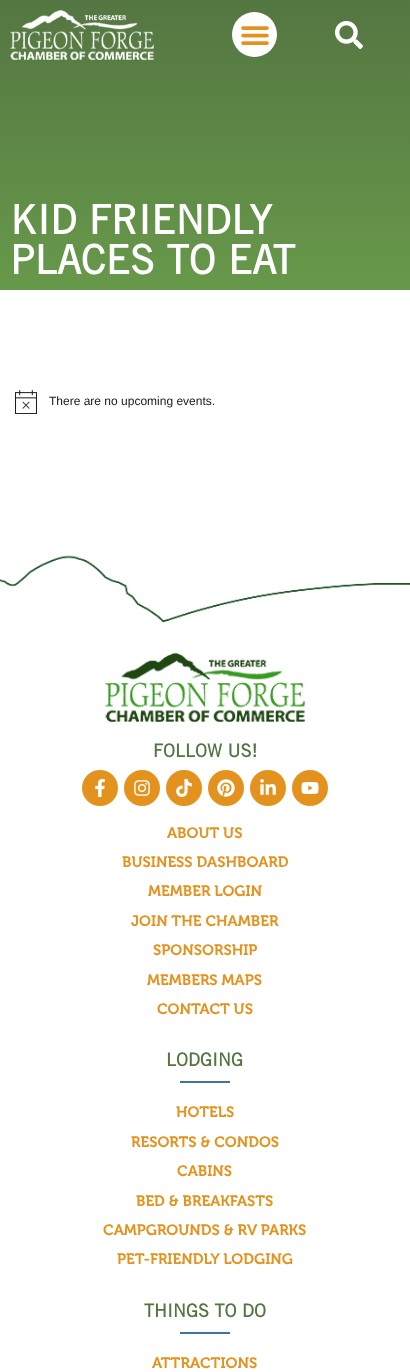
<!DOCTYPE html>
<meta charset="utf-8">
<style>body { margin: 0 } canvas { display: block }</style>
<canvas id="canvas" width="410" height="1372"></canvas>
<script type="module">
  const canvas = document.getElementById("canvas");
  const ctx = canvas.getContext("2d");
  ctx.miterLimit = 4;
  ctx.fontKerning = "normal";
  async function loadImage(src) {
    const img = new Image();
    img.src = src;
    await img.decode();
    return img;
  }
  let gradient;

  ctx.fillStyle = "#ffffff";
  ctx.fillRect(0, 0, 410, 1372);
  gradient = ctx.createLinearGradient(205, -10, 205, 290);
  gradient.addColorStop(0, "#547542");
  gradient.addColorStop(1, "#67994a");
  ctx.fillStyle = gradient;
  ctx.fillRect(0, 0, 410, 290);
  ctx.drawImage(await loadImage("img1.png"), 10, 10, 144, 50);
  ctx.fillStyle = "#ffffff";
  ctx.beginPath();
  ctx.arc(254.5, 34.5, 22.5, 0, Math.PI * 2);
  ctx.fill();
  ctx.drawImage(await loadImage("img2.png"), 241, 26, 28, 19);
  ctx.drawImage(await loadImage("img3.png"), 335, 21, 28, 28);
  ctx.font = "bold 40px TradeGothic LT";
  ctx.fillText("KID FRIENDLY", 10, 234);
  ctx.fillText("PLACES TO EAT", 10, 274);
  ctx.drawImage(await loadImage("img4.png"), 15, 390, 22, 24);
  ctx.font = "12px Liberation Sans";
  ctx.fillStyle = "#141827";
  ctx.fillText("There are no upcoming events.", 49, 405);
  ctx.drawImage(await loadImage("img5.png"), 0, 555, 410, 68);
  ctx.drawImage(await loadImage("img6.png"), 105, 653, 200, 69);
  ctx.font = "bold 18px TradeGothic LT";
  ctx.fillStyle = "#547542";
  ctx.fillText("FOLLOW US!", 153, 757);
  ctx.fillStyle = "#e4921e";
  ctx.beginPath();
  ctx.arc(100, 788, 18, 0, Math.PI * 2);
  ctx.fill();
  ctx.drawImage(await loadImage("img7.png"), 95, 779, 10, 18);
  ctx.beginPath();
  ctx.arc(142, 788, 18, 0, Math.PI * 2);
  ctx.fill();
  ctx.drawImage(await loadImage("img8.png"), 134, 780, 16, 16);
  ctx.beginPath();
  ctx.arc(184, 788, 18, 0, Math.PI * 2);
  ctx.fill();
  ctx.drawImage(await loadImage("img9.png"), 176, 779, 16, 18);
  ctx.beginPath();
  ctx.arc(226, 788, 18, 0, Math.PI * 2);
  ctx.fill();
  ctx.drawImage(await loadImage("img10.png"), 217, 779, 18, 18);
  ctx.beginPath();
  ctx.arc(268, 788, 18, 0, Math.PI * 2);
  ctx.fill();
  ctx.drawImage(await loadImage("img11.png"), 260, 779, 16, 16);
  ctx.beginPath();
  ctx.arc(310, 788, 18, 0, Math.PI * 2);
  ctx.fill();
  ctx.drawImage(await loadImage("img12.png"), 301, 782, 18, 12);
  ctx.font = "600 15px 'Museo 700'";
  ctx.fillText("ABOUT US", 167, 838);
  ctx.fillText("BUSINESS DASHBOARD", 122, 867);
  ctx.fillText("MEMBER LOGIN", 148, 896);
  ctx.fillText("JOIN THE CHAMBER", 131, 926);
  ctx.fillText("SPONSORSHIP", 153, 955);
  ctx.fillText("MEMBERS MAPS", 147, 985);
  ctx.fillText("CONTACT US", 157, 1014);
  ctx.font = "bold 18px TradeGothic LT";
  ctx.fillStyle = "#547542";
  ctx.fillText("LODGING", 166, 1066);
  ctx.fillStyle = "#42749d";
  ctx.fillRect(180, 1081, 50, 2);
  ctx.font = "600 15px 'Museo 700'";
  ctx.fillStyle = "#e4921e";
  ctx.fillText("HOTELS", 176, 1117);
  ctx.fillText("RESORTS & CONDOS", 131, 1147);
  ctx.fillText("CABINS", 177, 1176);
  ctx.fillText("BED & BREAKFASTS", 136, 1206);
  ctx.fillText("CAMPGROUNDS & RV PARKS", 103, 1235);
  ctx.fillText("PET-FRIENDLY LODGING", 117, 1264);
  ctx.font = "bold 18px TradeGothic LT";
  ctx.fillStyle = "#547542";
  ctx.fillText("THINGS TO DO", 144, 1317);
  ctx.fillStyle = "#42749d";
  ctx.fillRect(180, 1332, 50, 2);
  ctx.font = "600 15px 'Museo 700'";
  ctx.fillStyle = "#e4921e";
  ctx.fillText("ATTRACTIONS", 152, 1368);
</script>
